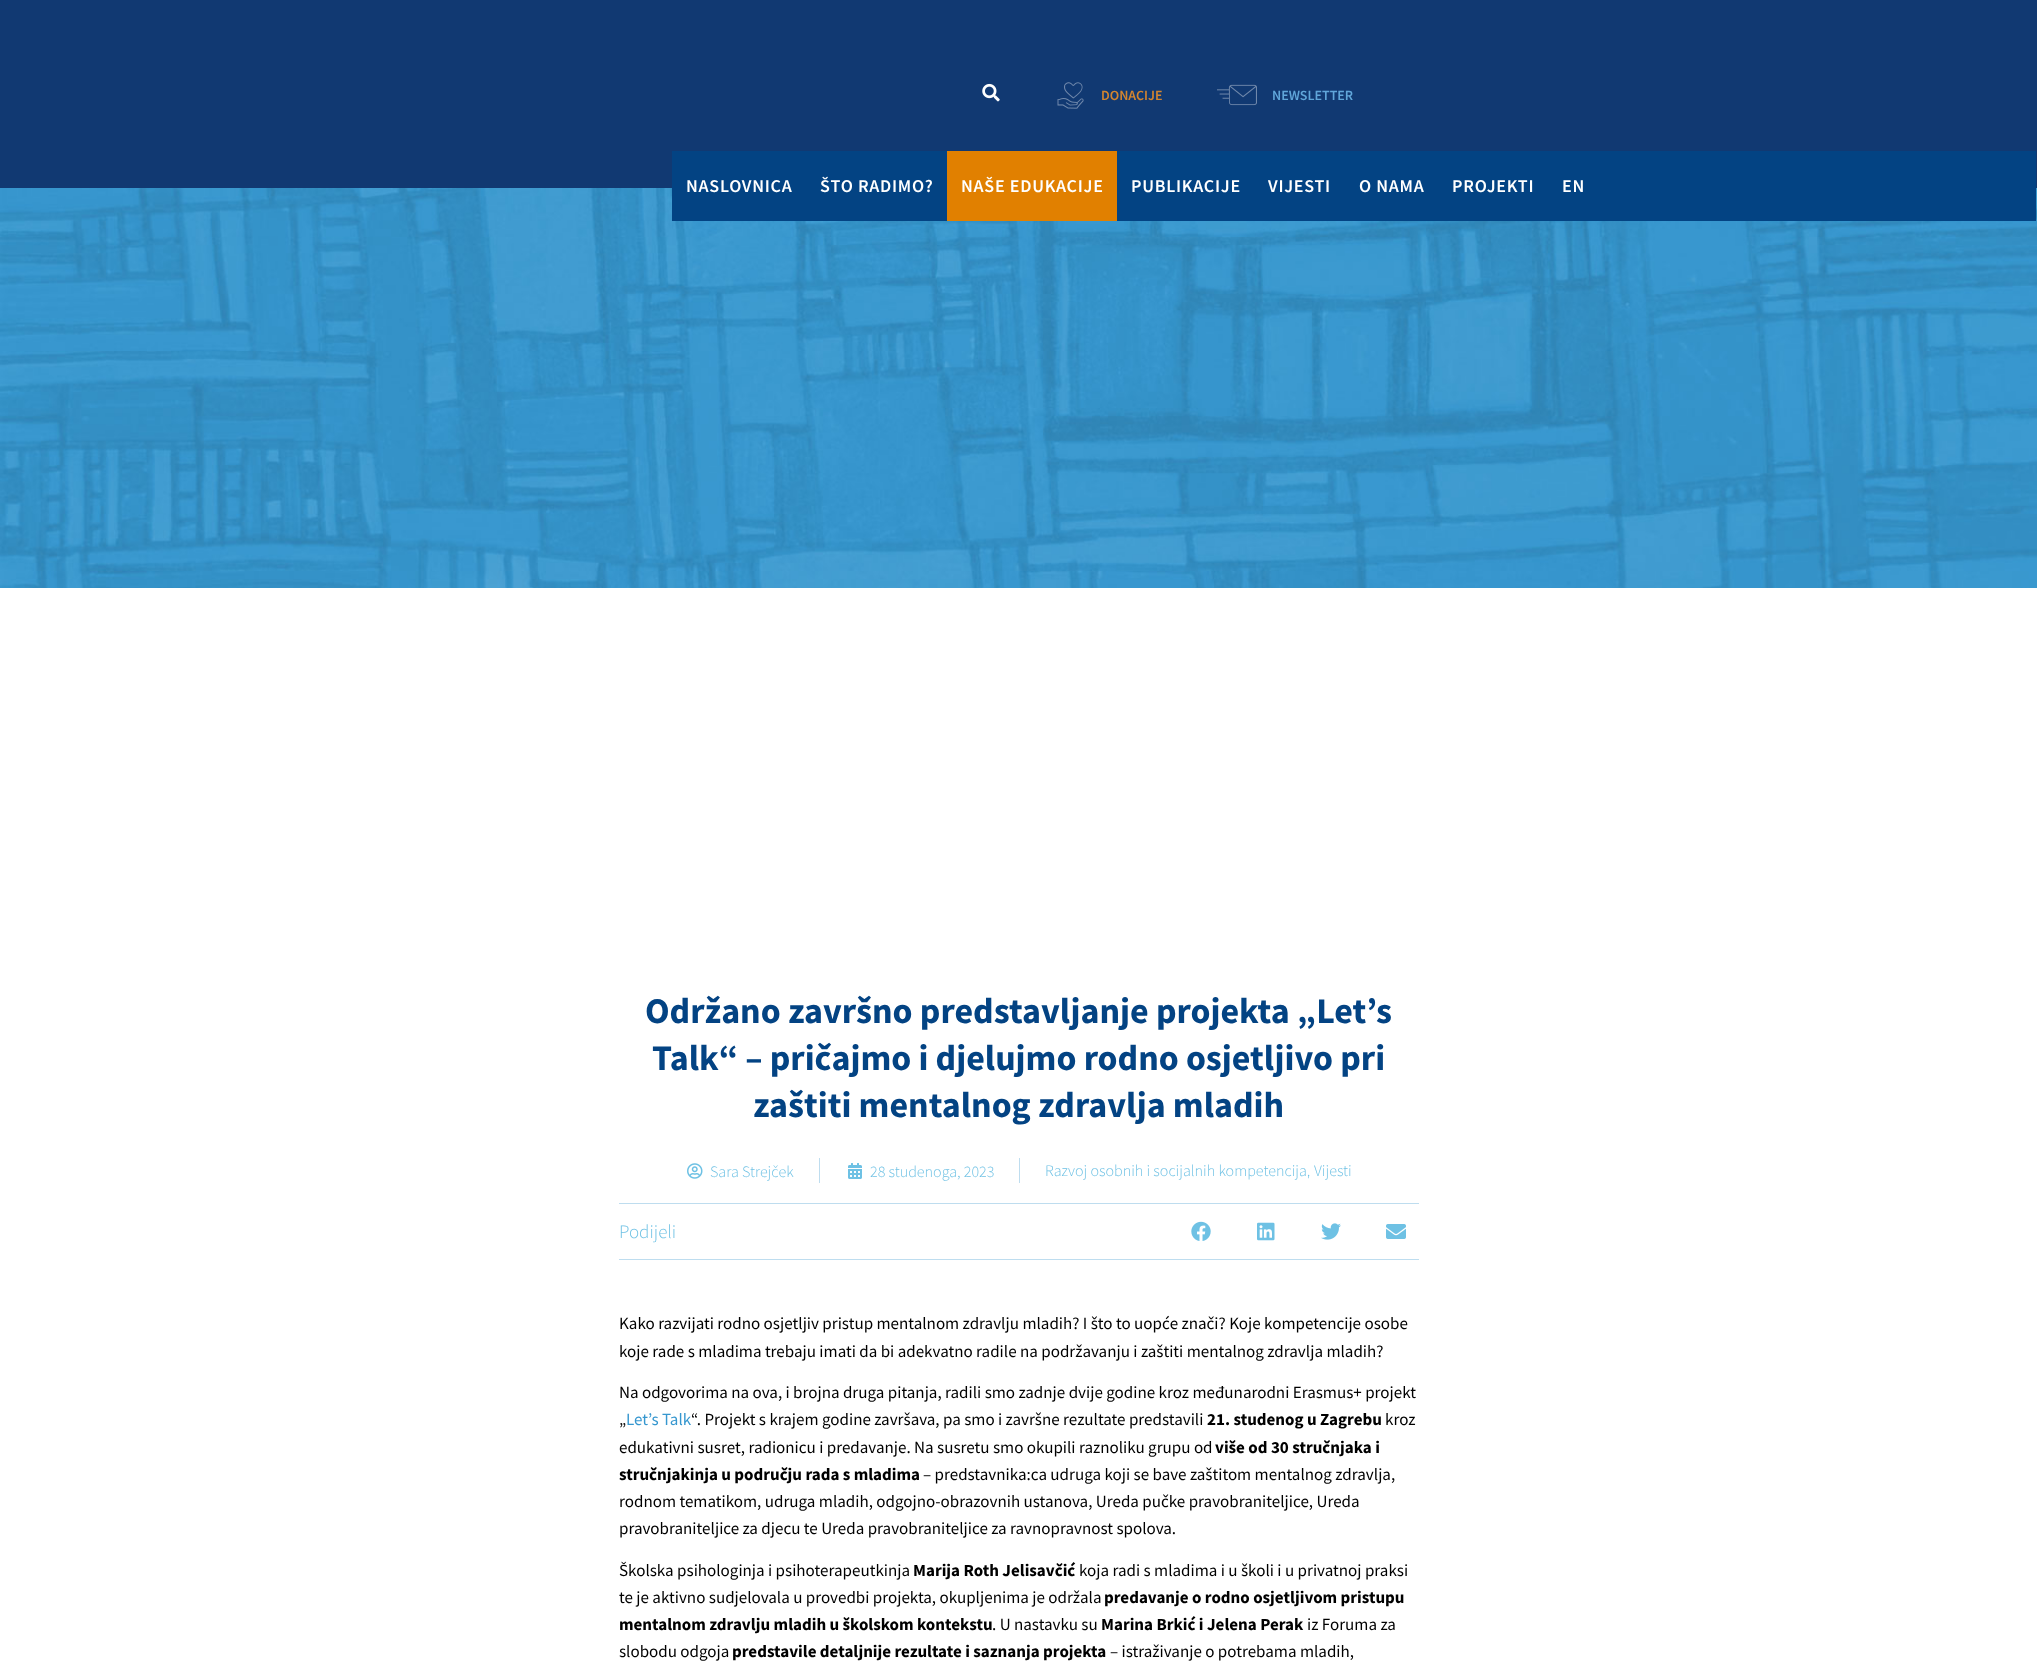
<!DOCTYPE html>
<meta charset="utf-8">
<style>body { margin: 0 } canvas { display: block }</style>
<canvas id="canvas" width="2037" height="1670"></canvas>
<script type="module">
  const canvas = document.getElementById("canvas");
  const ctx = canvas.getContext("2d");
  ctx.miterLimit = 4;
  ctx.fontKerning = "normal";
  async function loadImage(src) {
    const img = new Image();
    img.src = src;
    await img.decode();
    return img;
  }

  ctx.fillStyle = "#ffffff";
  ctx.fillRect(0, 0, 2037, 1670);
  ctx.fillStyle = "#113972";
  ctx.fillRect(0, 0, 2037, 188);
  ctx.drawImage(await loadImage("img1.png"), 982, 83, 18, 19);
  ctx.drawImage(await loadImage("img2.png"), 1057, 82, 27, 27);
  ctx.font = "600 14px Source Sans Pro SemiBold";
  ctx.fillStyle = "#d4852f";
  ctx.fillText("DONACIJE", 1101, 100);
  ctx.drawImage(await loadImage("img3.png"), 1217, 84, 40, 22);
  ctx.fillStyle = "#60a6da";
  ctx.fillText("NEWSLETTER", 1272, 100);
  ctx.drawImage(await loadImage("img4.png"), 0, 188, 2037, 400);
  ctx.fillStyle = "#034383";
  ctx.fillRect(672, 151, 1364, 70);
  ctx.letterSpacing = "0.75px";
  ctx.font = "600 18px Source Sans Pro SemiBold";
  ctx.fillStyle = "#ffffff";
  ctx.fillText("NASLOVNICA", 686, 192);
  ctx.fillText("ŠTO RADIMO?", 820, 192);
  ctx.fillStyle = "#e18000";
  ctx.fillRect(947, 151, 170, 70);
  ctx.fillStyle = "#ffffff";
  ctx.fillText("NAŠE EDUKACIJE", 961, 192);
  ctx.fillText("PUBLIKACIJE", 1131, 192);
  ctx.fillText("VIJESTI", 1268, 192);
  ctx.fillText("O NAMA", 1359, 192);
  ctx.fillText("PROJEKTI", 1452, 192);
  ctx.fillText("EN", 1562, 192);
  ctx.letterSpacing = "0px";
  ctx.font = "bold 36px Source Sans Pro";
  ctx.fillStyle = "#034383";
  ctx.fillText("Održano završno predstavljanje projekta „Let’s", 645, 1023);
  ctx.fillText("Talk“ – pričajmo i djelujmo rodno osjetljivo pri", 652, 1070);
  ctx.fillText("zaštiti mentalnog zdravlja mladih", 753, 1117);
  ctx.drawImage(await loadImage("img5.png"), 687, 1163, 16, 16);
  ctx.font = "300 16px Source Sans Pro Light";
  ctx.fillStyle = "#6ec1e4";
  ctx.fillText("Sara Strejček", 710, 1177);
  ctx.fillStyle = "#beddef";
  ctx.fillRect(819, 1158, 1, 25);
  ctx.drawImage(await loadImage("img6.png"), 848, 1163, 14, 16);
  ctx.fillStyle = "#6ec1e4";
  ctx.fillText("28 studenoga, 2023", 870, 1177);
  ctx.fillStyle = "#beddef";
  ctx.fillRect(1019, 1158, 1, 25);
  ctx.fillStyle = "#6ec1e4";
  ctx.fillText("Razvoj osobnih i socijalnih kompetencija", 1045, 1176);
  ctx.font = "300 16px Montserrat";
  ctx.fillText(",", 1307, 1176);
  ctx.font = "300 16px Source Sans Pro Light";
  ctx.fillText("Vijesti", 1314, 1176);
  ctx.fillStyle = "#beddef";
  ctx.fillRect(619, 1203, 800, 1);
  ctx.fillRect(619, 1259, 800, 1);
  ctx.font = "300 19px Source Sans Pro Light";
  ctx.fillStyle = "#6ec1e4";
  ctx.fillText("Podijeli", 619, 1238);
  ctx.drawImage(await loadImage("img7.png"), 1191, 1221, 20, 20);
  ctx.drawImage(await loadImage("img8.png"), 1257, 1222, 18, 19);
  ctx.drawImage(await loadImage("img9.png"), 1321, 1223, 20, 17);
  ctx.drawImage(await loadImage("img10.png"), 1386, 1224, 20, 15);
  ctx.font = "17px Source Sans Pro";
  ctx.fillStyle = "#000000";
  ctx.fillText("Kako razvijati rodno osjetljiv pristup mentalnom zdravlju mladih? I što to uopće znači? Koje kompetencije osobe", 619, 1329);
  ctx.fillText("koje rade s mladima trebaju imati da bi adekvatno radile na podržavanju i zaštiti mentalnog zdravlja mladih?", 619, 1357);
  ctx.fillText("Na odgovorima na ova, i brojna druga pitanja, radili smo zadnje dvije godine kroz međunarodni Erasmus+ projekt", 619, 1398);
  ctx.fillText("„", 619, 1425);
  ctx.fillStyle = "#3697cf";
  ctx.fillText("Let’s Talk", 626, 1425);
  ctx.fillStyle = "#000000";
  ctx.fillText("“. Projekt s krajem godine završava, pa smo i završne rezultate predstavili", 691, 1425);
  ctx.font = "bold 17px Source Sans Pro";
  ctx.fillText("21. studenog u Zagrebu", 1207, 1425);
  ctx.font = "17px Source Sans Pro";
  ctx.fillText("kroz", 1385, 1425);
  ctx.fillText("edukativni susret, radionicu i predavanje. Na susretu smo okupili raznoliku grupu od", 619, 1453);
  ctx.font = "bold 17px Source Sans Pro";
  ctx.fillText("više od 30 stručnjaka i", 1215, 1453);
  ctx.fillText("stručnjakinja u području rada s mladima", 619, 1480);
  ctx.font = "17px Source Sans Pro";
  ctx.fillText("– predstavnika:ca udruga koji se bave zaštitom mentalnog zdravlja,", 923, 1480);
  ctx.fillText("rodnom tematikom, udruga mladih, odgojno-obrazovnih ustanova, Ureda pučke pravobraniteljice, Ureda", 619, 1507);
  ctx.fillText("pravobraniteljice za djecu te Ureda pravobraniteljice za ravnopravnost spolova.", 619, 1534);
  ctx.fillText("Školska psihologinja i psihoterapeutkinja", 619, 1576);
  ctx.font = "bold 17px Source Sans Pro";
  ctx.fillText("Marija Roth Jelisavčić", 913, 1576);
  ctx.font = "17px Source Sans Pro";
  ctx.fillText("koja radi s mladima i u školi i u privatnoj praksi", 1079, 1576);
  ctx.fillText("te je aktivno sudjelovala u provedbi projekta, okupljenima je održala", 619, 1603);
  ctx.font = "bold 17px Source Sans Pro";
  ctx.fillText("predavanje o rodno osjetljivom pristupu", 1104, 1603);
  ctx.fillText("mentalnom zdravlju mladih u školskom kontekstu", 619, 1630);
  ctx.font = "17px Source Sans Pro";
  ctx.fillText(". U nastavku su", 992, 1630);
  ctx.font = "bold 17px Source Sans Pro";
  ctx.fillText("Marina Brkić i Jelena Perak", 1101, 1630);
  ctx.font = "17px Source Sans Pro";
  ctx.fillText("iz Foruma za", 1307, 1630);
  ctx.fillText("slobodu odgoja", 619, 1657);
  ctx.font = "bold 17px Source Sans Pro";
  ctx.fillText("predstavile detaljnije rezultate i saznanja projekta", 732, 1657);
  ctx.font = "17px Source Sans Pro";
  ctx.fillText("– istraživanje o potrebama mladih,", 1110, 1657);
</script>
